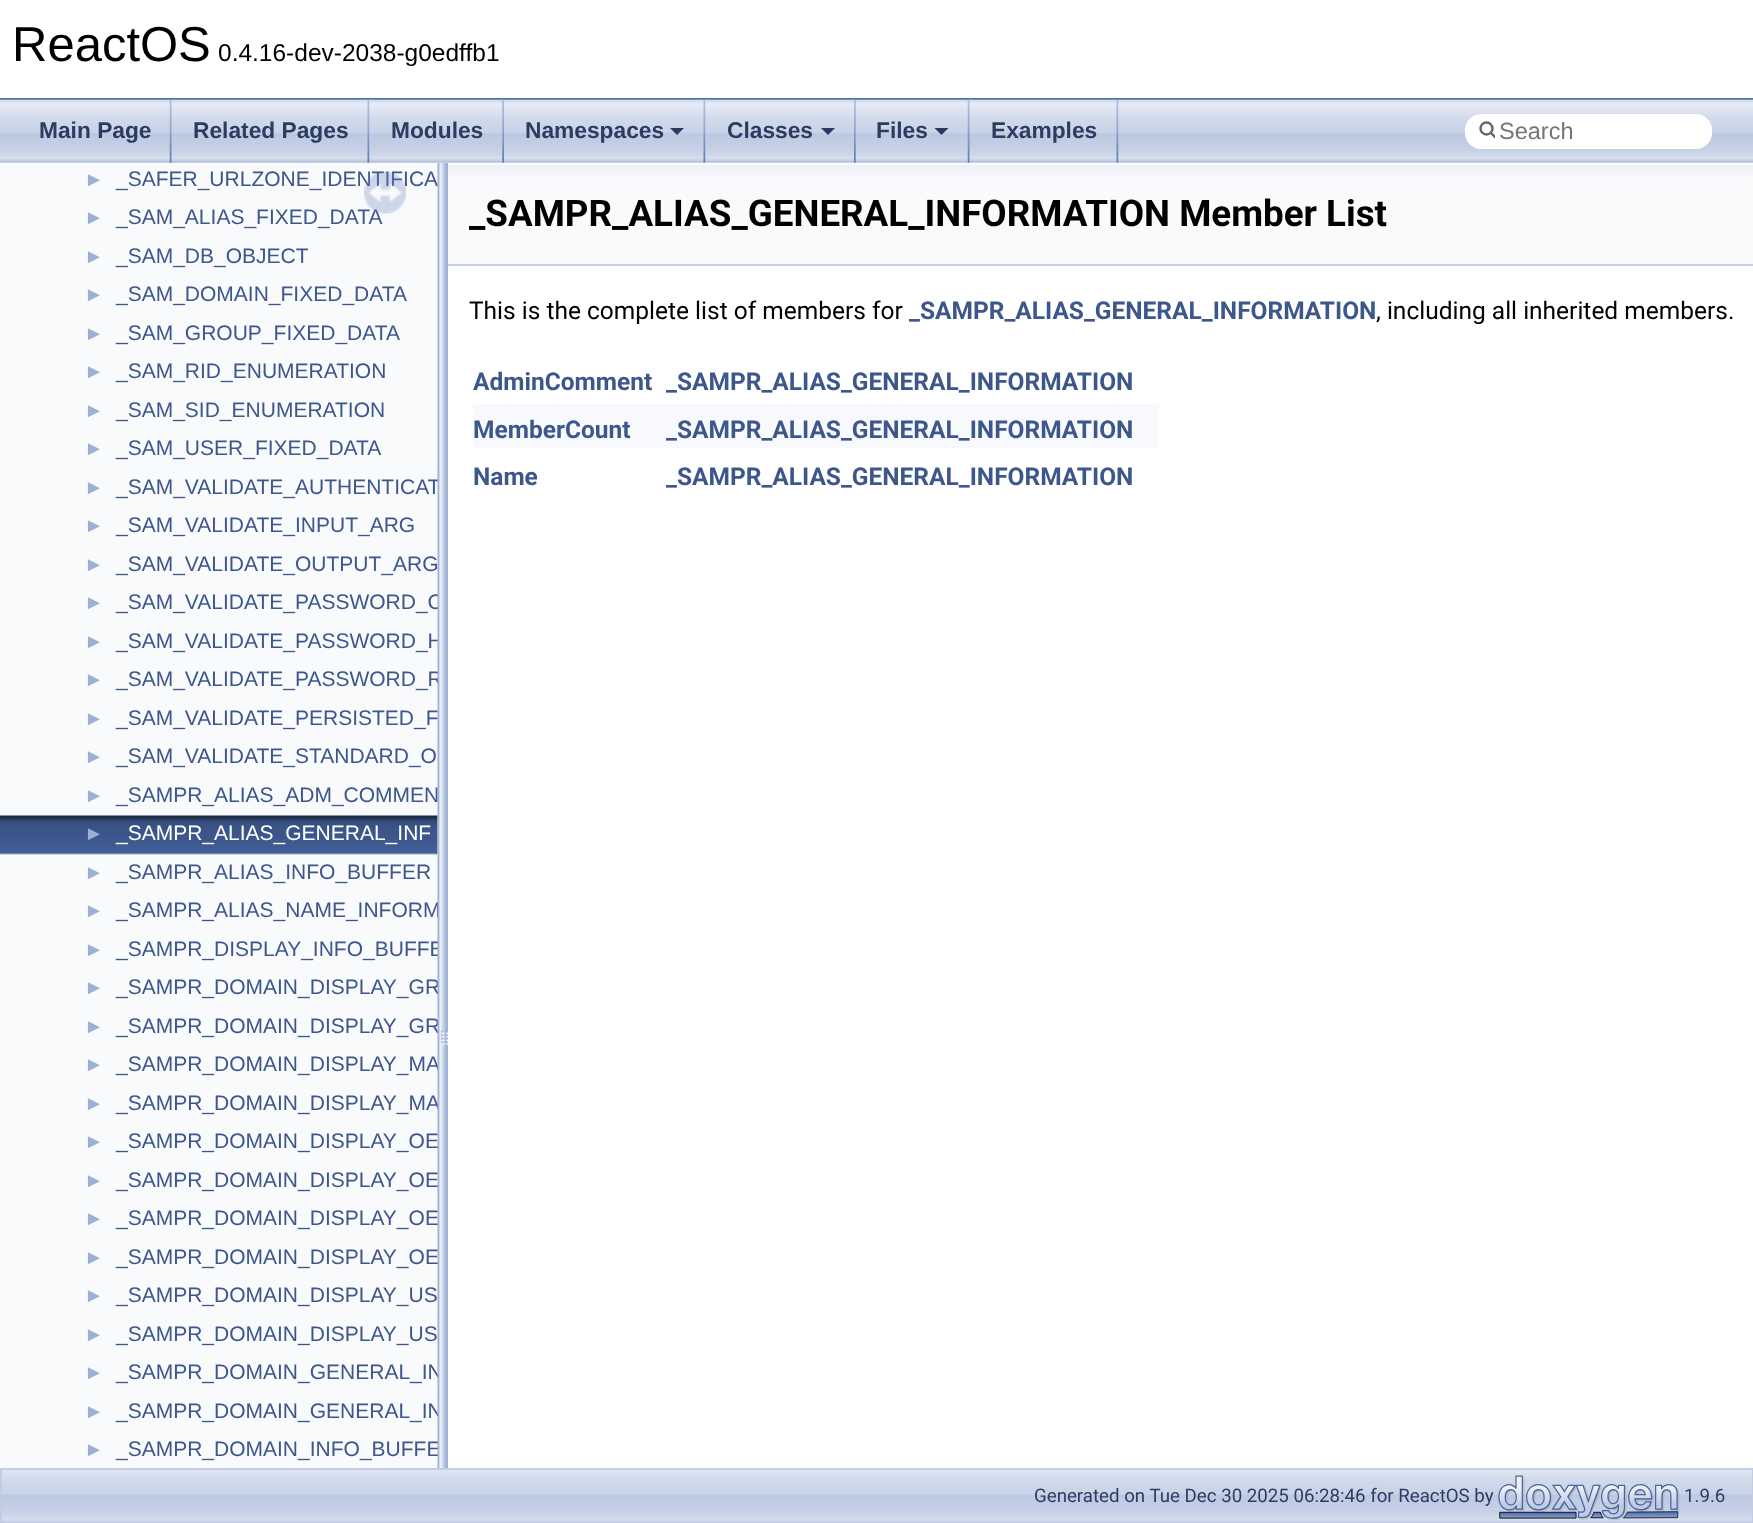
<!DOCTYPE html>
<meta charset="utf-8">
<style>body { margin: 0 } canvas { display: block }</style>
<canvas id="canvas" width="1753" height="1523"></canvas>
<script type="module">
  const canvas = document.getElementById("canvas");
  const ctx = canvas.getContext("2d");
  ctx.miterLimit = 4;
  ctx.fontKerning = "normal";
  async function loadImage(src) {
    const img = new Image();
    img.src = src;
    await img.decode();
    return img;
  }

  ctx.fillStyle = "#ffffff";
  ctx.fillRect(0, 0, 1753, 1523);
  ctx.fillStyle = "#5373b4";
  ctx.fillRect(0, 98, 1753, 2);
  ctx.font = "49px Liberation Sans";
  ctx.fillStyle = "#000000";
  ctx.fillText("ReactOS", 12, 61);
  ctx.font = "24.5px Liberation Sans";
  ctx.fillText("0.4.16-dev-2038-g0edffb1", 218, 61);
  ctx.fillStyle = "#f9fafc";
  ctx.fillRect(0, 163, 438, 1305);
  ctx.font = "21px Liberation Sans";
  ctx.fillStyle = "#3d578c";
  ctx.fillText("_SAFER_URLZONE_IDENTIFICA", 116, 186);
  ctx.fillText("_SAM_VALIDATE_AUTHENTICAT", 116, 494);
  ctx.fillText("_SAM_VALIDATE_PASSWORD_C", 116, 609);
  ctx.fillText("_SAM_VALIDATE_PASSWORD_H", 116, 648);
  ctx.fillText("_SAM_VALIDATE_PASSWORD_R", 116, 686);
  ctx.fillText("_SAM_VALIDATE_PERSISTED_F", 116, 725);
  ctx.fillText("_SAMPR_ALIAS_ADM_COMMEN", 116, 802);
  ctx.drawImage(await loadImage("img6.png"), 0, 815, 438, 40);
  ctx.fillText("_SAMPR_ALIAS_NAME_INFORM", 116, 917);
  ctx.fillText("_SAMPR_DISPLAY_INFO_BUFFE", 116, 956);
  ctx.fillText("_SAMPR_DOMAIN_DISPLAY_GR", 116, 994);
  ctx.fillText("_SAMPR_DOMAIN_DISPLAY_GR", 116, 1033);
  ctx.fillText("_SAMPR_DOMAIN_DISPLAY_MA", 116, 1071);
  ctx.fillText("_SAMPR_DOMAIN_DISPLAY_MA", 116, 1110);
  ctx.fillText("_SAMPR_DOMAIN_DISPLAY_OE", 116, 1148);
  ctx.fillText("_SAMPR_DOMAIN_DISPLAY_OE", 116, 1187);
  ctx.fillText("_SAMPR_DOMAIN_DISPLAY_OE", 116, 1225);
  ctx.fillText("_SAMPR_DOMAIN_DISPLAY_OE", 116, 1264);
  ctx.fillText("_SAMPR_DOMAIN_GENERAL_IN", 116, 1379);
  ctx.fillText("_SAMPR_DOMAIN_GENERAL_IN", 116, 1418);
  ctx.fillText("_SAMPR_DOMAIN_INFO_BUFFE", 116, 1456);
  ctx.drawImage(await loadImage("img8.png"), 437, 162, 11, 1306);
  ctx.drawImage(await loadImage("img1.png"), 0, 99, 1753, 64);
  ctx.drawImage(await loadImage("img2.png"), 169, 99, 3, 64);
  ctx.font = "bold 22.75px Liberation Sans";
  ctx.fillStyle = "#2a3d61";
  ctx.fillText("Main Page", 39, 138);
  ctx.drawImage(await loadImage("img3.png"), 367, 99, 3, 64);
  ctx.fillText("Related Pages", 193, 138);
  ctx.drawImage(await loadImage("img4.png"), 502, 99, 2, 64);
  ctx.fillText("Modules", 391, 138);
  ctx.drawImage(await loadImage("img3.png"), 703, 99, 3, 64);
  ctx.fillText("Namespaces", 525, 138);
  ctx.fillStyle = "#283a5d";
  ctx.beginPath();
  ctx.moveTo(670, 128);
  ctx.lineTo(684, 128);
  ctx.lineTo(677, 135);
  ctx.closePath();
  ctx.fill();
  ctx.drawImage(await loadImage("img5.png"), 854, 99, 2, 64);
  ctx.fillStyle = "#2a3d61";
  ctx.fillText("Classes", 727, 138);
  ctx.fillStyle = "#283a5d";
  ctx.beginPath();
  ctx.moveTo(821, 128);
  ctx.lineTo(835, 128);
  ctx.lineTo(828, 135);
  ctx.closePath();
  ctx.fill();
  ctx.drawImage(await loadImage("img2.png"), 967, 99, 3, 64);
  ctx.fillStyle = "#2a3d61";
  ctx.fillText("Files", 876, 138);
  ctx.fillStyle = "#283a5d";
  ctx.beginPath();
  ctx.moveTo(934.5, 128);
  ctx.lineTo(948.5, 128);
  ctx.lineTo(941.5, 135);
  ctx.closePath();
  ctx.fill();
  ctx.drawImage(await loadImage("img3.png"), 1116, 99, 3, 64);
  ctx.fillStyle = "#2a3d61";
  ctx.fillText("Examples", 991, 138);
  ctx.fillStyle = "#ffffff";
  ctx.beginPath();
  ctx.roundRect(1465, 114, 247, 35, 16);
  ctx.fill();
  ctx.beginPath();
  ctx.arc(1486.5, 128.5, 6, 0, Math.PI * 2);
  ctx.strokeStyle = "#656565";
  ctx.lineWidth = 2.4;
  ctx.stroke();
  ctx.save();
  ctx.beginPath();
  ctx.rect(1477, 114, 18, 33);
  ctx.clip();
  ctx.beginPath();
  ctx.moveTo(1491, 133);
  ctx.lineTo(1496, 138);
  ctx.lineCap = "round";
  ctx.stroke();
  ctx.restore();
  ctx.font = "23.5px Liberation Sans";
  ctx.fillStyle = "#757575";
  ctx.fillText("Search", 1499, 139);
  ctx.font = "20px Liberation Sans";
  ctx.fillStyle = "#9cafd4";
  ctx.fillText("►", 84, 186);
  ctx.fillText("►", 84, 224);
  ctx.font = "21px Liberation Sans";
  ctx.fillStyle = "#3d578c";
  ctx.fillText("_SAM_ALIAS_FIXED_DATA", 116, 224);
  ctx.font = "20px Liberation Sans";
  ctx.fillStyle = "#9cafd4";
  ctx.fillText("►", 84, 263);
  ctx.font = "21px Liberation Sans";
  ctx.fillStyle = "#3d578c";
  ctx.fillText("_SAM_DB_OBJECT", 116, 263);
  ctx.font = "20px Liberation Sans";
  ctx.fillStyle = "#9cafd4";
  ctx.fillText("►", 84, 301);
  ctx.font = "21px Liberation Sans";
  ctx.fillStyle = "#3d578c";
  ctx.fillText("_SAM_DOMAIN_FIXED_DATA", 116, 301);
  ctx.font = "20px Liberation Sans";
  ctx.fillStyle = "#9cafd4";
  ctx.fillText("►", 84, 340);
  ctx.font = "21px Liberation Sans";
  ctx.fillStyle = "#3d578c";
  ctx.fillText("_SAM_GROUP_FIXED_DATA", 116, 340);
  ctx.font = "20px Liberation Sans";
  ctx.fillStyle = "#9cafd4";
  ctx.fillText("►", 84, 378);
  ctx.font = "21px Liberation Sans";
  ctx.fillStyle = "#3d578c";
  ctx.fillText("_SAM_RID_ENUMERATION", 116, 378);
  ctx.font = "20px Liberation Sans";
  ctx.fillStyle = "#9cafd4";
  ctx.fillText("►", 84, 417);
  ctx.font = "21px Liberation Sans";
  ctx.fillStyle = "#3d578c";
  ctx.fillText("_SAM_SID_ENUMERATION", 116, 417);
  ctx.font = "20px Liberation Sans";
  ctx.fillStyle = "#9cafd4";
  ctx.fillText("►", 84, 455);
  ctx.font = "21px Liberation Sans";
  ctx.fillStyle = "#3d578c";
  ctx.fillText("_SAM_USER_FIXED_DATA", 116, 455);
  ctx.font = "20px Liberation Sans";
  ctx.fillStyle = "#9cafd4";
  ctx.fillText("►", 84, 494);
  ctx.fillText("►", 84, 532);
  ctx.font = "21px Liberation Sans";
  ctx.fillStyle = "#3d578c";
  ctx.fillText("_SAM_VALIDATE_INPUT_ARG", 116, 532);
  ctx.font = "20px Liberation Sans";
  ctx.fillStyle = "#9cafd4";
  ctx.fillText("►", 84, 571);
  ctx.font = "21px Liberation Sans";
  ctx.fillStyle = "#3d578c";
  ctx.fillText("_SAM_VALIDATE_OUTPUT_ARG", 116, 571);
  ctx.font = "20px Liberation Sans";
  ctx.fillStyle = "#9cafd4";
  ctx.fillText("►", 84, 609);
  ctx.fillText("►", 84, 648);
  ctx.fillText("►", 84, 686);
  ctx.fillText("►", 84, 725);
  ctx.fillText("►", 84, 763);
  ctx.font = "21px Liberation Sans";
  ctx.fillStyle = "#3d578c";
  ctx.fillText("_SAM_VALIDATE_STANDARD_O", 116, 763);
  ctx.font = "20px Liberation Sans";
  ctx.fillStyle = "#9cafd4";
  ctx.fillText("►", 84, 802);
  ctx.fillText("►", 84, 840);
  ctx.font = "21px Liberation Sans";
  ctx.fillStyle = "#ffffff";
  ctx.fillText("_SAMPR_ALIAS_GENERAL_INF", 116, 840);
  ctx.font = "20px Liberation Sans";
  ctx.fillStyle = "#9cafd4";
  ctx.fillText("►", 84, 879);
  ctx.font = "21px Liberation Sans";
  ctx.fillStyle = "#3d578c";
  ctx.fillText("_SAMPR_ALIAS_INFO_BUFFER", 116, 879);
  ctx.font = "20px Liberation Sans";
  ctx.fillStyle = "#9cafd4";
  ctx.fillText("►", 84, 917);
  ctx.fillText("►", 84, 956);
  ctx.fillText("►", 84, 994);
  ctx.fillText("►", 84, 1033);
  ctx.fillText("►", 84, 1071);
  ctx.fillText("►", 84, 1110);
  ctx.fillText("►", 84, 1148);
  ctx.fillText("►", 84, 1187);
  ctx.fillText("►", 84, 1225);
  ctx.fillText("►", 84, 1264);
  ctx.fillText("►", 84, 1302);
  ctx.font = "21px Liberation Sans";
  ctx.fillStyle = "#3d578c";
  ctx.fillText("_SAMPR_DOMAIN_DISPLAY_US", 116, 1302);
  ctx.font = "20px Liberation Sans";
  ctx.fillStyle = "#9cafd4";
  ctx.fillText("►", 84, 1341);
  ctx.font = "21px Liberation Sans";
  ctx.fillStyle = "#3d578c";
  ctx.fillText("_SAMPR_DOMAIN_DISPLAY_US", 116, 1341);
  ctx.font = "20px Liberation Sans";
  ctx.fillStyle = "#9cafd4";
  ctx.fillText("►", 84, 1379);
  ctx.fillText("►", 84, 1418);
  ctx.fillText("►", 84, 1456);
  ctx.drawImage(await loadImage("img7.png"), 364, 171, 42, 43);
  ctx.fillStyle = "#f9fafc";
  ctx.fillRect(448, 177, 1305, 87);
  ctx.drawImage(await loadImage("img9.png"), 448, 163, 1305, 14);
  ctx.fillStyle = "#c4cfe5";
  ctx.fillRect(448, 264, 1305, 2);
  ctx.font = "bold 36.75px Roboto";
  ctx.fillStyle = "#000000";
  ctx.fillText("_SAMPR_ALIAS_GENERAL_INFORMATION Member List", 469, 226);
  ctx.font = "24.5px Roboto";
  ctx.fillText("This is the complete list of members for", 469, 319);
  ctx.font = "bold 24.5px Roboto";
  ctx.fillStyle = "#3d578c";
  ctx.fillText("_SAMPR_ALIAS_GENERAL_INFORMATION", 909, 319);
  ctx.font = "24.5px Roboto";
  ctx.fillStyle = "#000000";
  ctx.fillText(", including all inherited members.", 1376, 319);
  ctx.font = "bold 24.5px Roboto";
  ctx.fillStyle = "#3d578c";
  ctx.fillText("AdminComment", 473, 390);
  ctx.fillText("_SAMPR_ALIAS_GENERAL_INFORMATION", 666, 390);
  ctx.fillStyle = "#f8f9fc";
  ctx.fillRect(473, 404, 686, 44);
  ctx.fillStyle = "#3d578c";
  ctx.fillText("MemberCount", 473, 438);
  ctx.fillText("_SAMPR_ALIAS_GENERAL_INFORMATION", 666, 438);
  ctx.fillText("Name", 473, 485);
  ctx.fillText("_SAMPR_ALIAS_GENERAL_INFORMATION", 666, 485);
  ctx.drawImage(await loadImage("img10.png"), 2, 1470, 1750, 52);
  ctx.strokeStyle = "#c2cde4";
  ctx.lineWidth = 2;
  ctx.strokeRect(1, 1469, 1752, 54);
  ctx.font = "18.7px Roboto";
  ctx.fillStyle = "#2a3d61";
  ctx.fillText("Generated on Tue Dec 30 2025 06:28:46 for ReactOS by", 1034, 1502);
  ctx.drawImage(await loadImage("img11.png"), 1498, 1475, 182, 46);
  ctx.fillText("1.9.6", 1684, 1502);
</script>
